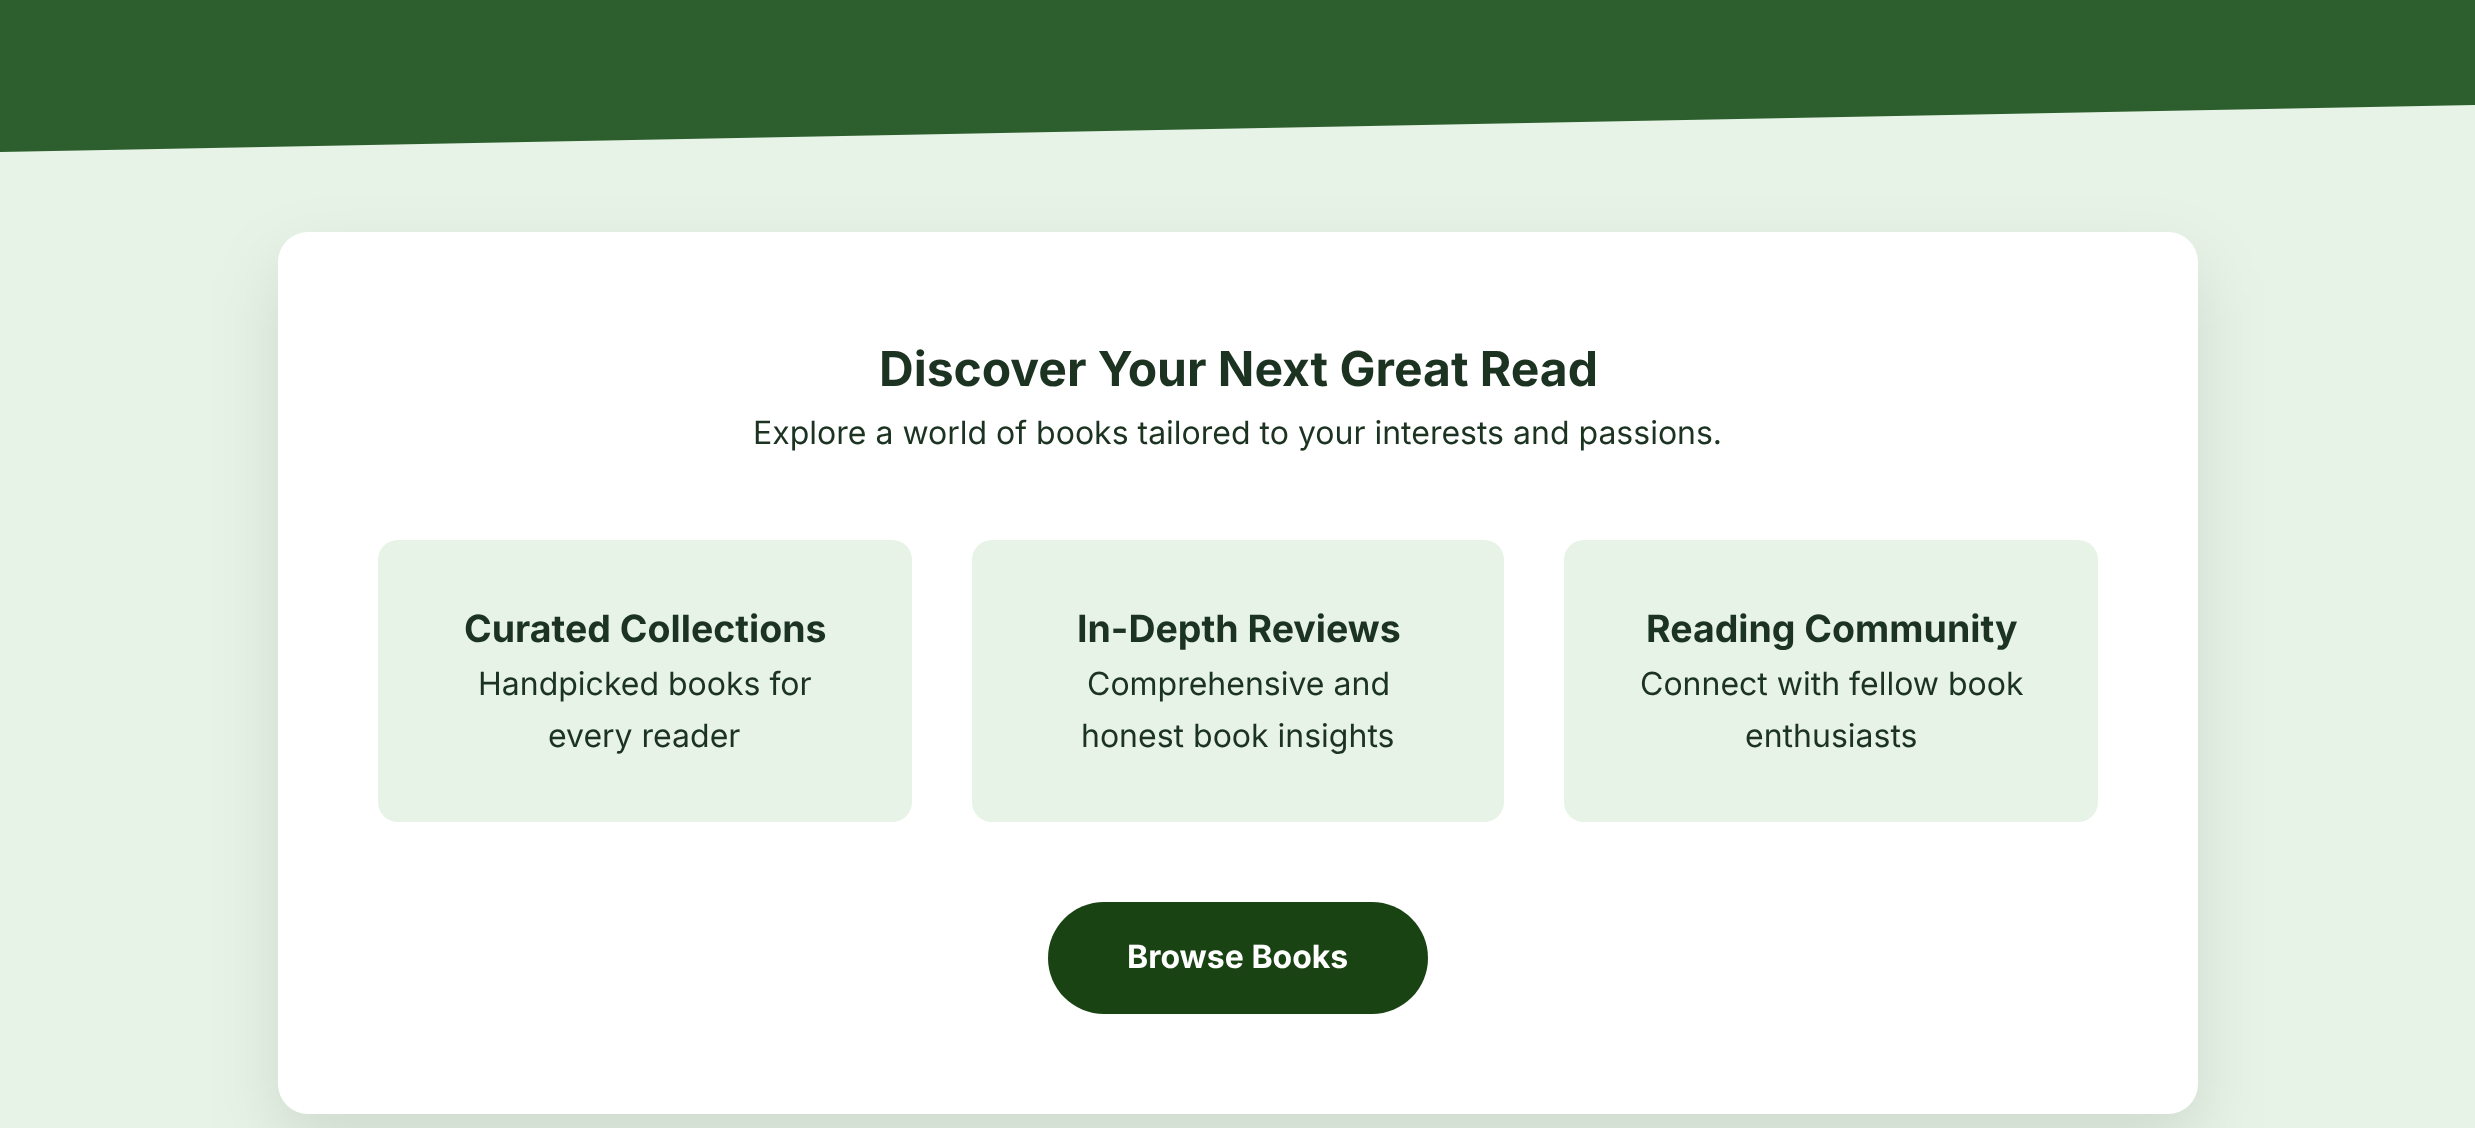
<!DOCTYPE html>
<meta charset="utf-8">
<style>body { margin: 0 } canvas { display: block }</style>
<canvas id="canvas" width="2475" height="1128"></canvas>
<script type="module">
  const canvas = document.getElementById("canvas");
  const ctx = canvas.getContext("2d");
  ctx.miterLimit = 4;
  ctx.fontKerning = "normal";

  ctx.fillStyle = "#e6f3e6";
  ctx.fillRect(0, 0, 2475, 1128);
  ctx.fillStyle = "#2c5f2d";
  ctx.beginPath();
  ctx.moveTo(0, -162);
  ctx.lineTo(0, 152);
  ctx.lineTo(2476, 105);
  ctx.lineTo(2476, -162);
  ctx.closePath();
  ctx.fill();
  ctx.fillStyle = "rgba(0, 0, 0, 0.1)";
  ctx.filter = "blur(35px)";
  ctx.beginPath();
  ctx.roundRect(278, 262, 1920, 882, 30);
  ctx.fill();
  ctx.filter = "none";
  ctx.fillStyle = "#ffffff";
  ctx.beginPath();
  ctx.roundRect(278, 232, 1920, 882, 30);
  ctx.fill();
  ctx.font = "bold 48px Inter";
  ctx.fillStyle = "#1c3322";
  ctx.fillText("Discover Your Next Great Read", 879, 386);
  ctx.font = "32px Inter";
  ctx.fillText("Explore a world of books tailored to your interests and passions.", 753, 444);
  ctx.fillStyle = "#e6f3e6";
  ctx.beginPath();
  ctx.roundRect(378, 540, 534, 282, 20);
  ctx.fill();
  ctx.font = "bold 37.5px Inter";
  ctx.fillStyle = "#1c3322";
  ctx.fillText("Curated Collections", 464, 642);
  ctx.font = "32px Inter";
  ctx.fillText("Handpicked books for", 478, 695);
  ctx.fillText("every reader", 548, 747);
  ctx.fillStyle = "#e6f3e6";
  ctx.beginPath();
  ctx.roundRect(972, 540, 532, 282, 20);
  ctx.fill();
  ctx.font = "bold 37.5px Inter";
  ctx.fillStyle = "#1c3322";
  ctx.fillText("In-Depth Reviews", 1077, 642);
  ctx.font = "32px Inter";
  ctx.fillText("Comprehensive and", 1087, 695);
  ctx.fillText("honest book insights", 1081, 747);
  ctx.fillStyle = "#e6f3e6";
  ctx.beginPath();
  ctx.roundRect(1564, 540, 534, 282, 20);
  ctx.fill();
  ctx.font = "bold 37.5px Inter";
  ctx.fillStyle = "#1c3322";
  ctx.fillText("Reading Community", 1646, 642);
  ctx.font = "32px Inter";
  ctx.fillText("Connect with fellow book", 1640, 695);
  ctx.fillText("enthusiasts", 1745, 747);
  ctx.fillStyle = "#1a4314";
  ctx.beginPath();
  ctx.roundRect(1048, 902, 380, 112, 56);
  ctx.fill();
  ctx.font = "bold 32px Inter";
  ctx.fillStyle = "#ffffff";
  ctx.fillText("Browse Books", 1127, 968);
</script>
